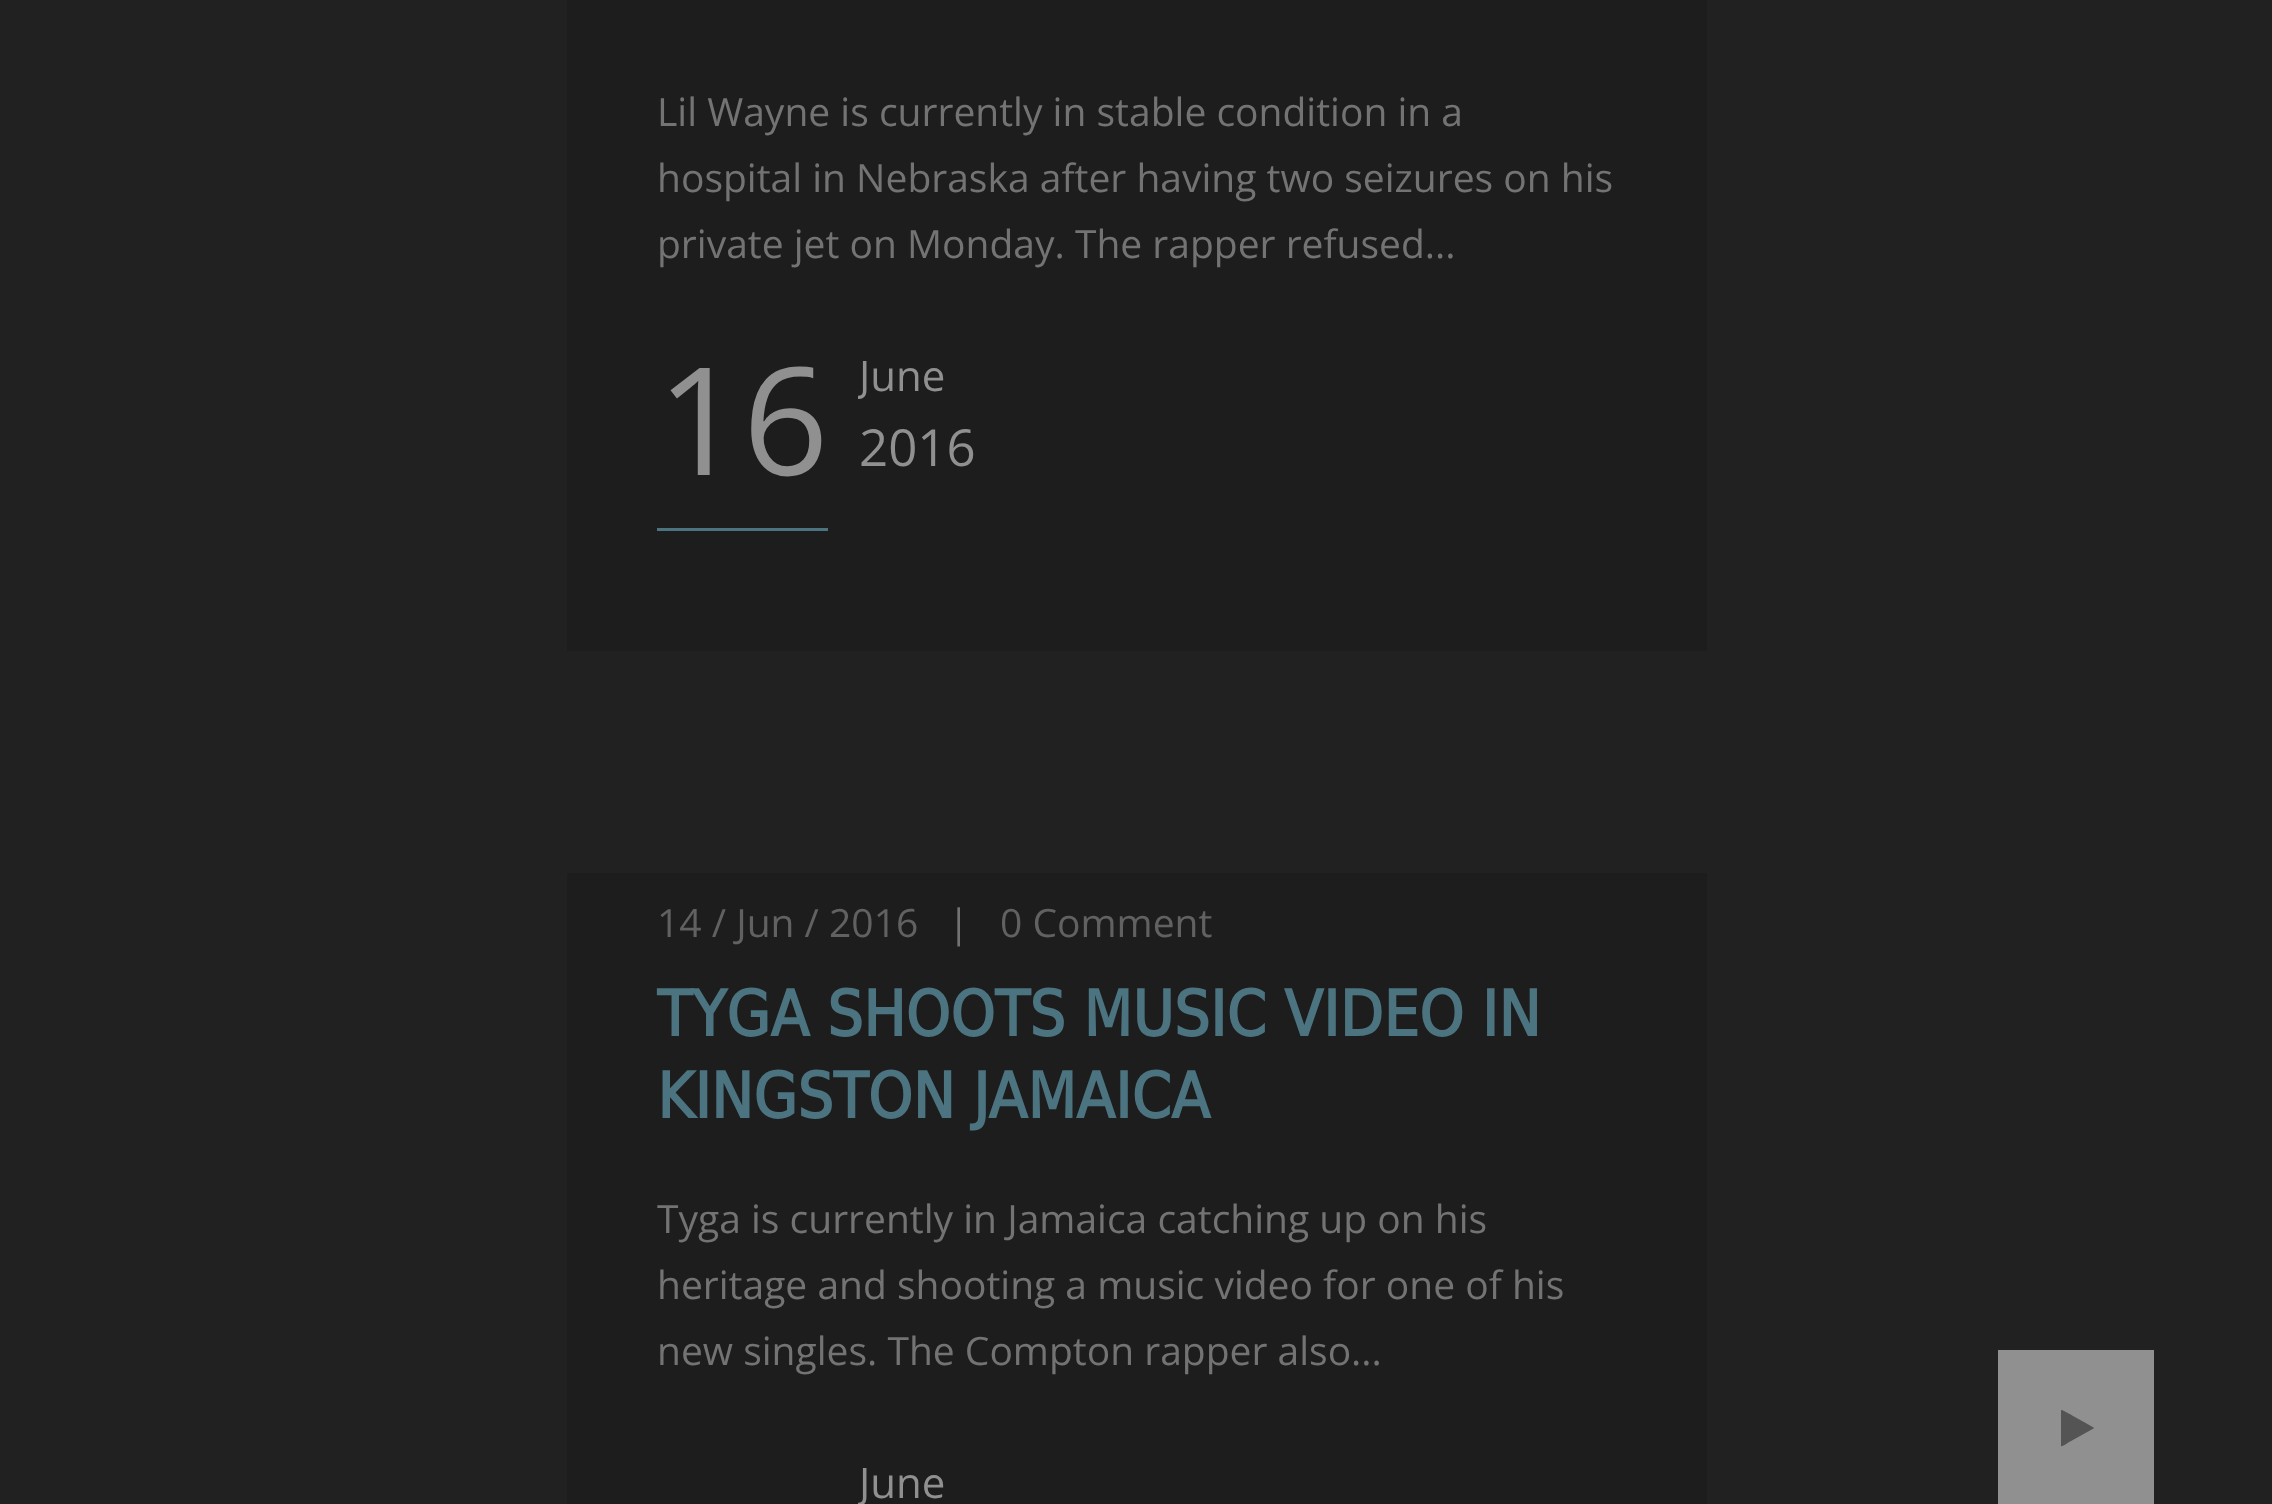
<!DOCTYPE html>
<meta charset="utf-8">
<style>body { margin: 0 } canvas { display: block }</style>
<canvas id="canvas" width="2272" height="1504"></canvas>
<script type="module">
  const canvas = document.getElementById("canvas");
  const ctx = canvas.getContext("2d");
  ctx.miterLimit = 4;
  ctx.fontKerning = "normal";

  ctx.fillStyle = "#212121";
  ctx.fillRect(0, 0, 2272, 1504);
  ctx.fillStyle = "#1d1d1d";
  ctx.fillRect(567, 0, 1140, 651);
  ctx.font = "39px Open Sans";
  ctx.fillStyle = "#737373";
  ctx.fillText("Lil Wayne is currently in stable condition in a", 657, 126);
  ctx.fillText("hospital in Nebraska after having two seizures on his", 657, 192);
  ctx.fillText("private jet on Monday. The rapper refused...", 657, 258);
  ctx.fillStyle = "#4b7480";
  ctx.fillRect(657, 528, 171, 3);
  ctx.font = "150px Open Sans";
  ctx.fillStyle = "#909090";
  ctx.fillText("16", 657, 475);
  ctx.save();
  ctx.beginPath();
  ctx.rect(858, 342, 759, 129);
  ctx.clip();
  ctx.font = "42px Open Sans";
  ctx.fillText("June", 859, 391);
  ctx.restore();
  ctx.font = "51px Open Sans";
  ctx.fillText("2016", 859, 466);
  ctx.fillStyle = "#1d1d1d";
  ctx.fillRect(567, 873, 1140, 631);
  ctx.font = "39px Open Sans";
  ctx.fillStyle = "#616161";
  ctx.fillText("14 / Jun / 2016", 657, 937);
  ctx.fillStyle = "#737373";
  ctx.fillText("|", 948, 937);
  ctx.fillStyle = "#616161";
  ctx.fillText("0 Comment", 1000, 937);
  ctx.font = "bold 63px DejaVu Sans";
  ctx.fillStyle = "#4b7480";
  ctx.fillText("TYGA SHOOTS MUSIC VIDEO IN", 657, 1036);
  ctx.fillText("KINGSTON JAMAICA", 657, 1118);
  ctx.font = "39px Open Sans";
  ctx.fillStyle = "#737373";
  ctx.fillText("Tyga is currently in Jamaica catching up on his", 657, 1233);
  ctx.fillText("heritage and shooting a music video for one of his", 657, 1299);
  ctx.fillText("new singles. The Compton rapper also...", 657, 1365);
  ctx.save();
  ctx.beginPath();
  ctx.rect(858, 1449, 759, 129);
  ctx.clip();
  ctx.font = "42px Open Sans";
  ctx.fillStyle = "#909090";
  ctx.fillText("June", 859, 1498);
  ctx.restore();
  ctx.fillStyle = "#909090";
  ctx.fillRect(1998, 1350, 156, 154);
  ctx.fillStyle = "#545454";
  ctx.beginPath();
  ctx.moveTo(2093.5, 1428.5);
  ctx.lineTo(2067.5, 1443);
  ctx.bezierCurveTo(2067, 1443.5, 2062, 1447, 2061, 1446);
  ctx.lineTo(2061, 1410.5);
  ctx.lineTo(2061.5, 1410);
  ctx.bezierCurveTo(2062.5, 1409.5, 2081, 1420.5, 2083, 1421.5);
  ctx.lineTo(2093.5, 1427.5);
  ctx.lineTo(2094, 1428);
  ctx.closePath();
  ctx.fill();
</script>
